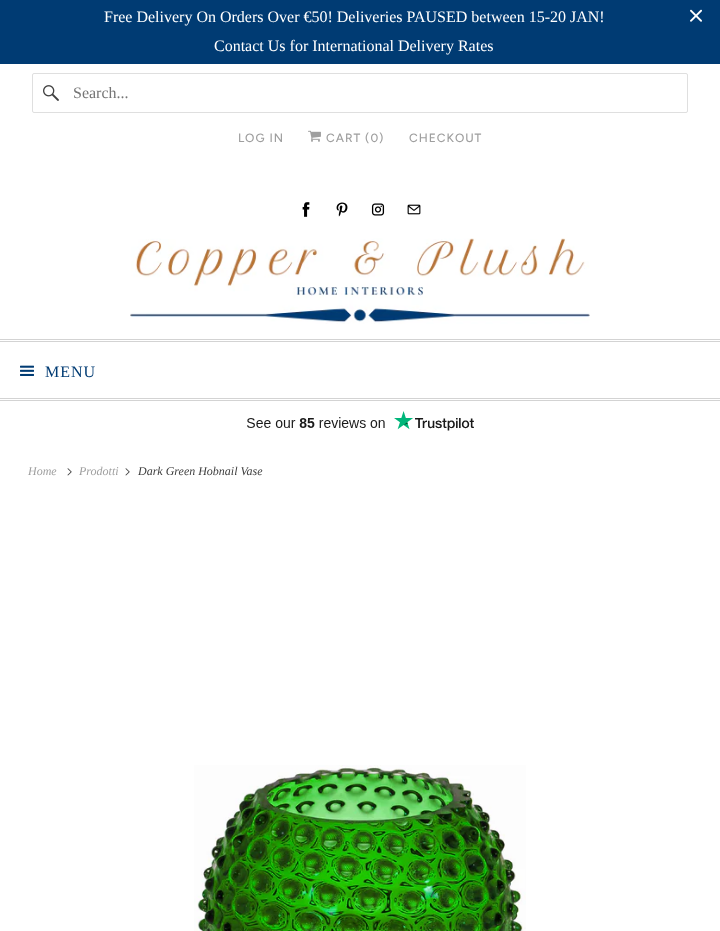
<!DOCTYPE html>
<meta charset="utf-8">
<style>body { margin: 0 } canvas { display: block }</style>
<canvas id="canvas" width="720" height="931"></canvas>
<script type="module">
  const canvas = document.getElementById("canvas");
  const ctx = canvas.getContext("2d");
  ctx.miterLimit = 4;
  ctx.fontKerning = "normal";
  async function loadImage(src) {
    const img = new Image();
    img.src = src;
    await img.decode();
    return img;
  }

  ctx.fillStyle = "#ffffff";
  ctx.fillRect(0, 0, 720, 931);
  ctx.fillStyle = "#003b73";
  ctx.fillRect(0, 0, 720, 64);
  ctx.font = "16px Liberation Serif";
  ctx.fillStyle = "#ffffff";
  ctx.fillText("Free Delivery On Orders Over €50! Deliveries PAUSED between 15-20 JAN!", 104, 22);
  ctx.fillText("Contact Us for International Delivery Rates", 214, 51);
  ctx.drawImage(await loadImage("img1.png"), 690, 9, 12, 13);
  ctx.beginPath();
  ctx.roundRect(32.5, 73.5, 655, 39, 1.5);
  ctx.strokeStyle = "#dfdfdf";
  ctx.stroke();
  ctx.drawImage(await loadImage("img2.png"), 43, 85, 16, 16);
  ctx.fillStyle = "#757575";
  ctx.fillText("Search...", 73, 98);
  ctx.letterSpacing = "1px";
  ctx.font = "500 12px Figtree";
  ctx.fillStyle = "#9f9f9f";
  ctx.fillText("LOG IN", 238, 142);
  ctx.drawImage(await loadImage("img3.png"), 308, 130, 13, 12);
  ctx.fillText("CART (0)", 326, 142);
  ctx.fillText("CHECKOUT", 409, 142);
  ctx.drawImage(await loadImage("img4.png"), 302, 202, 8, 15);
  ctx.drawImage(await loadImage("img5.png"), 336, 202, 12, 15);
  ctx.drawImage(await loadImage("img6.png"), 371, 203, 14, 13);
  ctx.drawImage(await loadImage("img7.png"), 407, 204, 14, 11);
  ctx.drawImage(await loadImage("img8.png"), 130, 238, 460, 86);
  ctx.fillStyle = "#d3d3d3";
  ctx.fillRect(0, 339, 720, 1);
  ctx.fillRect(0, 341, 720, 1);
  ctx.fillRect(0, 398, 720, 1);
  ctx.fillRect(0, 400, 720, 1);
  ctx.drawImage(await loadImage("img9.png"), 20, 365, 14, 11);
  ctx.font = "16px Liberation Serif";
  ctx.fillStyle = "#003b73";
  ctx.fillText("MENU", 45, 377);
  ctx.drawImage(await loadImage("img10.png"), 247, 411, 227, 20);
  ctx.letterSpacing = "0px";
  ctx.font = "italic 12px Liberation Serif";
  ctx.fillStyle = "#9f9f9f";
  ctx.fillText("Home", 28, 475);
  ctx.drawImage(await loadImage("img11.png"), 67, 468, 5, 8);
  ctx.fillText("Prodotti", 79, 475);
  ctx.drawImage(await loadImage("img11.png"), 125, 468, 5, 8);
  ctx.fillStyle = "#404040";
  ctx.fillText("Dark Green Hobnail Vase", 138, 475);
  ctx.drawImage(await loadImage("img12.png"), 194, 765, 332, 166);
</script>
